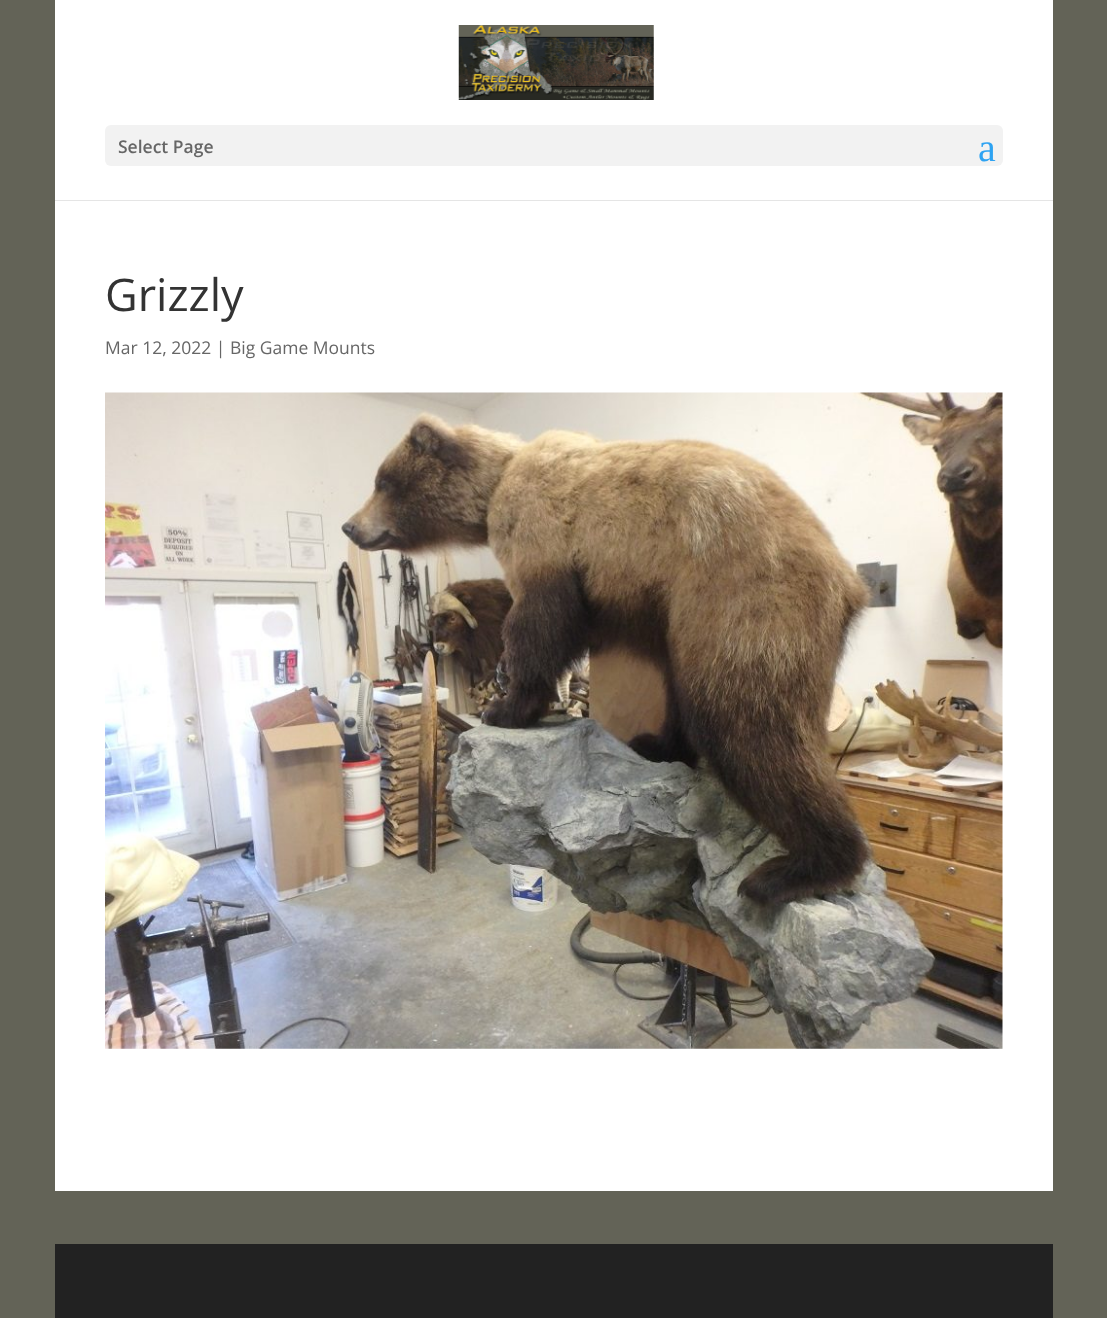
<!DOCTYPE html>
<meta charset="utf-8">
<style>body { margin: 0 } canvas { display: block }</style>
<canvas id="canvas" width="1107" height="1318"></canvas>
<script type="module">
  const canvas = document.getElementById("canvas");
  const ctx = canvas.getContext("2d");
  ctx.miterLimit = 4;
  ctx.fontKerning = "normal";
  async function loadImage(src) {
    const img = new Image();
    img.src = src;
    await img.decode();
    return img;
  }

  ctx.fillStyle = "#636357";
  ctx.fillRect(0, 0, 1107, 1318);
  ctx.fillStyle = "#ffffff";
  ctx.fillRect(55, 200, 998, 991);
  ctx.fillStyle = "rgba(0, 0, 0, 0.1)";
  ctx.beginPath();
  ctx.moveTo(55, 200);
  ctx.lineTo(55, 201);
  ctx.lineTo(1053, 201);
  ctx.lineTo(1053, 1);
  ctx.lineTo(1052, 1);
  ctx.lineTo(1052, 200);
  ctx.closePath();
  ctx.fill();
  ctx.fillStyle = "#ffffff";
  ctx.fillRect(55, 0, 998, 200);
  ctx.drawImage(await loadImage("img1.png"), 458, 25, 196, 75);
  ctx.fillStyle = "#f2f2f2";
  ctx.beginPath();
  ctx.roundRect(105, 125, 898, 41, 6);
  ctx.fill();
  ctx.font = "600 17.5px Open Sans";
  ctx.fillStyle = "#666666";
  ctx.fillText("Select Page", 118, 153);
  ctx.font = "40px Liberation Serif";
  ctx.fillStyle = "#2ea3f2";
  ctx.fillText("a", 978, 161);
  ctx.font = "45px Open Sans";
  ctx.fillStyle = "#333333";
  ctx.fillText("Grizzly", 105, 311);
  ctx.font = "17.5px Open Sans";
  ctx.fillStyle = "#666666";
  ctx.fillText("Mar 12, 2022 | Big Game Mounts", 105, 354);
  ctx.drawImage(await loadImage("img2.png"), 105, 392, 898, 657);
  ctx.fillStyle = "#222222";
  ctx.fillRect(55, 1244, 998, 74);
</script>
